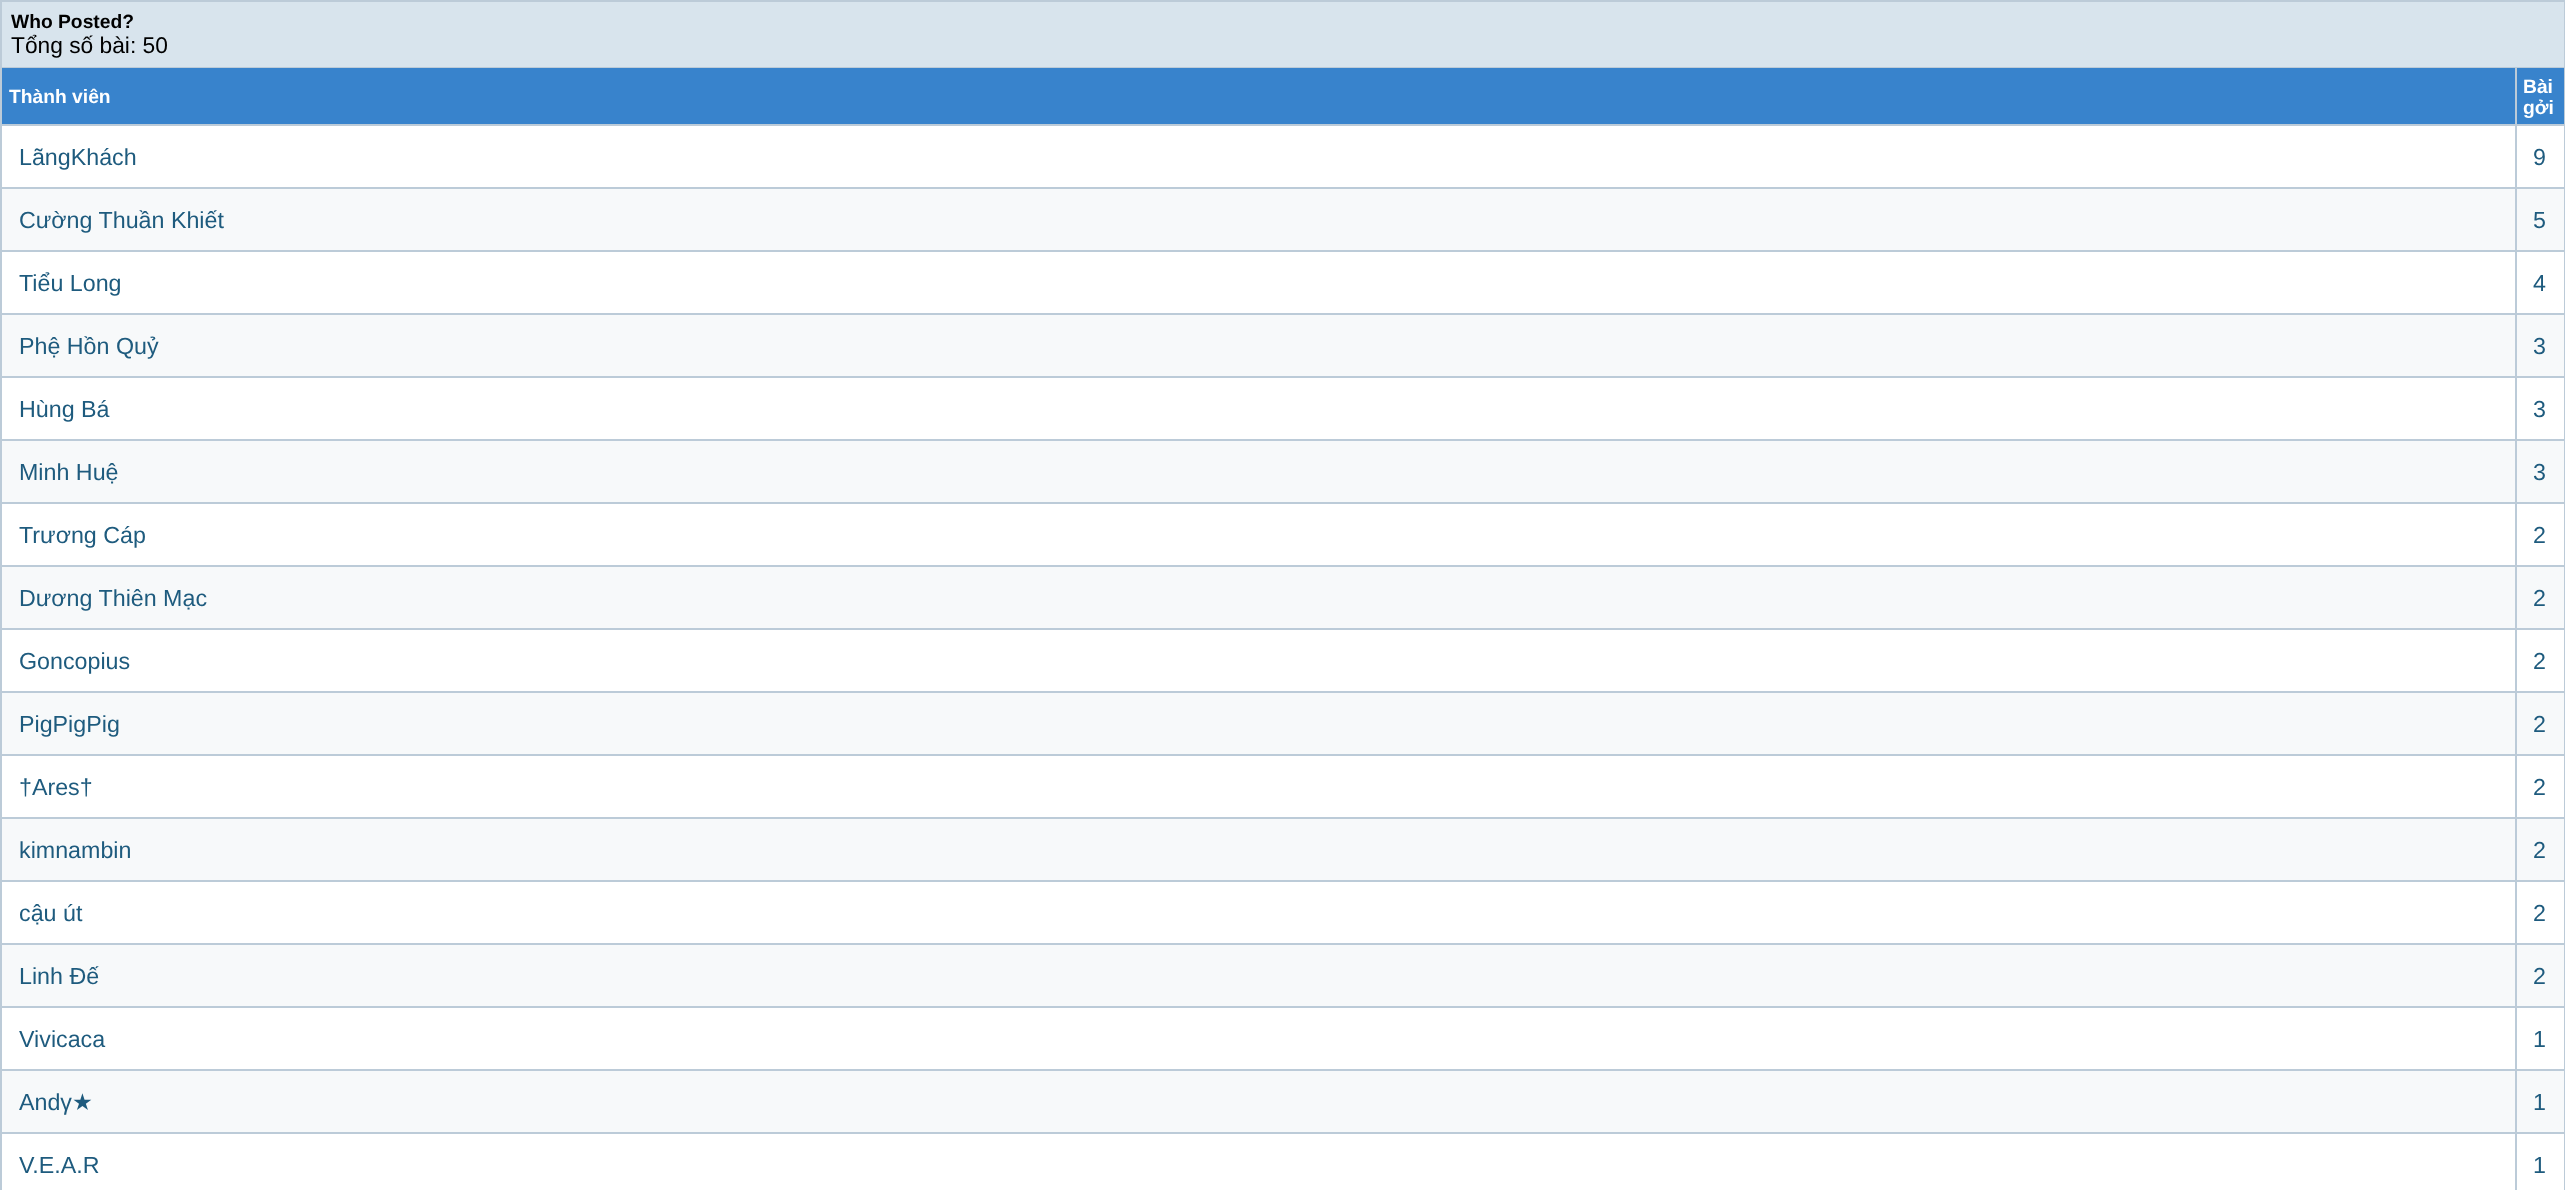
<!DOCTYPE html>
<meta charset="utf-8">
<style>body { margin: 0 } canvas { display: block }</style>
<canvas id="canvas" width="2565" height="1190"></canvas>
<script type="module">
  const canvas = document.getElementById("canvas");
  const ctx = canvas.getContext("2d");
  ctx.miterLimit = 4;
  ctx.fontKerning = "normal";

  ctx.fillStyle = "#bccbd8";
  ctx.fillRect(0, 0, 2565, 1190);
  ctx.fillStyle = "#d8e4ed";
  ctx.fillRect(2, 2, 2562, 65);
  ctx.font = "bold 19.25px Liberation Sans";
  ctx.fillStyle = "#000000";
  ctx.fillText("Who Posted?", 11, 28);
  ctx.font = "22.75px Liberation Sans";
  ctx.fillText("Tổng số bài: 50", 11, 53);
  ctx.fillStyle = "#3883cc";
  ctx.fillRect(2, 68, 2513, 56);
  ctx.font = "bold 19.25px Liberation Sans";
  ctx.fillStyle = "#ffffff";
  ctx.fillText("Thành viên", 9, 103);
  ctx.fillStyle = "#3883cc";
  ctx.fillRect(2517, 68, 47, 56);
  ctx.fillStyle = "#ffffff";
  ctx.fillText("Bài", 2523, 93);
  ctx.fillText("gởi", 2523, 114);
  ctx.fillRect(2, 126, 2513, 61);
  ctx.font = "23.25px Liberation Sans";
  ctx.fillStyle = "#1e5b7e";
  ctx.fillText("LãngKhách", 19, 165);
  ctx.fillStyle = "#ffffff";
  ctx.fillRect(2517, 126, 47, 61);
  ctx.fillStyle = "#1e5b7e";
  ctx.fillText("9", 2533, 165);
  ctx.fillStyle = "#f7f9fa";
  ctx.fillRect(2, 189, 2513, 61);
  ctx.fillStyle = "#1e5b7e";
  ctx.fillText("Cường Thuần Khiết", 19, 228);
  ctx.fillStyle = "#f7f9fa";
  ctx.fillRect(2517, 189, 47, 61);
  ctx.fillStyle = "#1e5b7e";
  ctx.fillText("5", 2533, 228);
  ctx.fillStyle = "#ffffff";
  ctx.fillRect(2, 252, 2513, 61);
  ctx.fillStyle = "#1e5b7e";
  ctx.fillText("Tiểu Long", 19, 291);
  ctx.fillStyle = "#ffffff";
  ctx.fillRect(2517, 252, 47, 61);
  ctx.fillStyle = "#1e5b7e";
  ctx.fillText("4", 2533, 291);
  ctx.fillStyle = "#f7f9fa";
  ctx.fillRect(2, 315, 2513, 61);
  ctx.fillStyle = "#1e5b7e";
  ctx.fillText("Phệ Hồn Quỷ", 19, 354);
  ctx.fillStyle = "#f7f9fa";
  ctx.fillRect(2517, 315, 47, 61);
  ctx.fillStyle = "#1e5b7e";
  ctx.fillText("3", 2533, 354);
  ctx.fillStyle = "#ffffff";
  ctx.fillRect(2, 378, 2513, 61);
  ctx.fillStyle = "#1e5b7e";
  ctx.fillText("Hùng Bá", 19, 417);
  ctx.fillStyle = "#ffffff";
  ctx.fillRect(2517, 378, 47, 61);
  ctx.fillStyle = "#1e5b7e";
  ctx.fillText("3", 2533, 417);
  ctx.fillStyle = "#f7f9fa";
  ctx.fillRect(2, 441, 2513, 61);
  ctx.fillStyle = "#1e5b7e";
  ctx.fillText("Minh Huệ", 19, 480);
  ctx.fillStyle = "#f7f9fa";
  ctx.fillRect(2517, 441, 47, 61);
  ctx.fillStyle = "#1e5b7e";
  ctx.fillText("3", 2533, 480);
  ctx.fillStyle = "#ffffff";
  ctx.fillRect(2, 504, 2513, 61);
  ctx.fillStyle = "#1e5b7e";
  ctx.fillText("Trương Cáp", 19, 543);
  ctx.fillStyle = "#ffffff";
  ctx.fillRect(2517, 504, 47, 61);
  ctx.fillStyle = "#1e5b7e";
  ctx.fillText("2", 2533, 543);
  ctx.fillStyle = "#f7f9fa";
  ctx.fillRect(2, 567, 2513, 61);
  ctx.fillStyle = "#1e5b7e";
  ctx.fillText("Dương Thiên Mạc", 19, 606);
  ctx.fillStyle = "#f7f9fa";
  ctx.fillRect(2517, 567, 47, 61);
  ctx.fillStyle = "#1e5b7e";
  ctx.fillText("2", 2533, 606);
  ctx.fillStyle = "#ffffff";
  ctx.fillRect(2, 630, 2513, 61);
  ctx.fillStyle = "#1e5b7e";
  ctx.fillText("Goncopius", 19, 669);
  ctx.fillStyle = "#ffffff";
  ctx.fillRect(2517, 630, 47, 61);
  ctx.fillStyle = "#1e5b7e";
  ctx.fillText("2", 2533, 669);
  ctx.fillStyle = "#f7f9fa";
  ctx.fillRect(2, 693, 2513, 61);
  ctx.fillStyle = "#1e5b7e";
  ctx.fillText("PigPigPig", 19, 732);
  ctx.fillStyle = "#f7f9fa";
  ctx.fillRect(2517, 693, 47, 61);
  ctx.fillStyle = "#1e5b7e";
  ctx.fillText("2", 2533, 732);
  ctx.fillStyle = "#ffffff";
  ctx.fillRect(2, 756, 2513, 61);
  ctx.fillStyle = "#1e5b7e";
  ctx.fillText("†Ares†", 19, 795);
  ctx.fillStyle = "#ffffff";
  ctx.fillRect(2517, 756, 47, 61);
  ctx.fillStyle = "#1e5b7e";
  ctx.fillText("2", 2533, 795);
  ctx.fillStyle = "#f7f9fa";
  ctx.fillRect(2, 819, 2513, 61);
  ctx.fillStyle = "#1e5b7e";
  ctx.fillText("kimnambin", 19, 858);
  ctx.fillStyle = "#f7f9fa";
  ctx.fillRect(2517, 819, 47, 61);
  ctx.fillStyle = "#1e5b7e";
  ctx.fillText("2", 2533, 858);
  ctx.fillStyle = "#ffffff";
  ctx.fillRect(2, 882, 2513, 61);
  ctx.fillStyle = "#1e5b7e";
  ctx.fillText("cậu út", 19, 921);
  ctx.fillStyle = "#ffffff";
  ctx.fillRect(2517, 882, 47, 61);
  ctx.fillStyle = "#1e5b7e";
  ctx.fillText("2", 2533, 921);
  ctx.fillStyle = "#f7f9fa";
  ctx.fillRect(2, 945, 2513, 61);
  ctx.fillStyle = "#1e5b7e";
  ctx.fillText("Linh Đế", 19, 984);
  ctx.fillStyle = "#f7f9fa";
  ctx.fillRect(2517, 945, 47, 61);
  ctx.fillStyle = "#1e5b7e";
  ctx.fillText("2", 2533, 984);
  ctx.fillStyle = "#ffffff";
  ctx.fillRect(2, 1008, 2513, 61);
  ctx.fillStyle = "#1e5b7e";
  ctx.fillText("Vivicaca", 19, 1047);
  ctx.fillStyle = "#ffffff";
  ctx.fillRect(2517, 1008, 47, 61);
  ctx.fillStyle = "#1e5b7e";
  ctx.fillText("1", 2533, 1047);
  ctx.fillStyle = "#f7f9fa";
  ctx.fillRect(2, 1071, 2513, 61);
  ctx.fillStyle = "#1e5b7e";
  ctx.fillText("Andγ", 19, 1110);
  ctx.font = "23.25px DejaVu Sans";
  ctx.fillText("★", 72, 1110);
  ctx.fillStyle = "#f7f9fa";
  ctx.fillRect(2517, 1071, 47, 61);
  ctx.font = "23.25px Liberation Sans";
  ctx.fillStyle = "#1e5b7e";
  ctx.fillText("1", 2533, 1110);
  ctx.fillStyle = "#ffffff";
  ctx.fillRect(2, 1134, 2513, 56);
  ctx.fillStyle = "#1e5b7e";
  ctx.fillText("V.E.A.R", 19, 1173);
  ctx.fillStyle = "#ffffff";
  ctx.fillRect(2517, 1134, 47, 56);
  ctx.fillStyle = "#1e5b7e";
  ctx.fillText("1", 2533, 1173);
</script>
